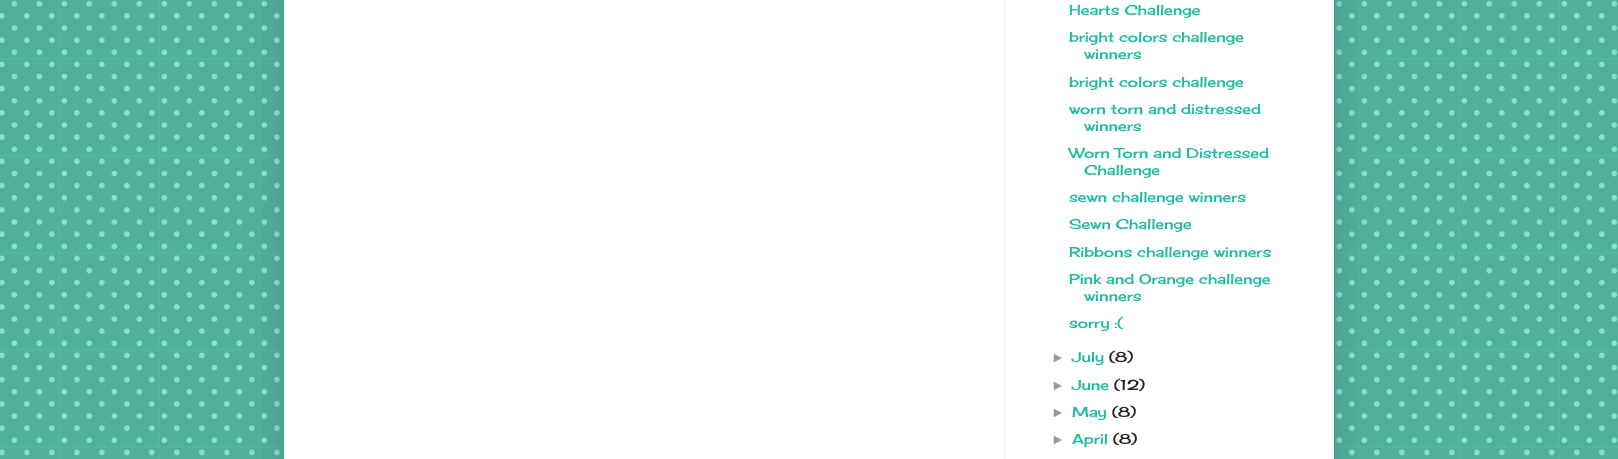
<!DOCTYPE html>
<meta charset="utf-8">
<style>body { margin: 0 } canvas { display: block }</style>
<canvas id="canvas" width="1618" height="459"></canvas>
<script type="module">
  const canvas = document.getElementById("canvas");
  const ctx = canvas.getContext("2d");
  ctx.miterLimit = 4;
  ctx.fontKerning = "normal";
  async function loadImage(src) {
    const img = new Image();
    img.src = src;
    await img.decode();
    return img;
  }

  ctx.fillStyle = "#66ddc3";
  ctx.fillRect(0, 0, 1618, 459);
  ctx.drawImage(await loadImage("img1.png"), 0, 0, 1618, 459);
  ctx.fillStyle = "rgba(0, 0, 0, 0.15)";
  ctx.filter = "blur(20px)";
  ctx.beginPath();
  ctx.rect(284, -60, 1050, 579);
  ctx.fill();
  ctx.filter = "none";
  ctx.fillStyle = "#ffffff";
  ctx.fillRect(284, 0, 1050, 459);
  ctx.fillStyle = "#eeeeee";
  ctx.fillRect(1004, 0, 1, 459);
  ctx.font = "14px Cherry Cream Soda";
  ctx.fillStyle = "#21bba0";
  ctx.fillText("Hearts Challenge", 1069, 15);
  ctx.fillText("bright colors challenge", 1069, 42);
  ctx.fillText("winners", 1084, 59);
  ctx.fillText("bright colors challenge", 1069, 87);
  ctx.fillText("worn torn and distressed", 1069, 114);
  ctx.fillText("winners", 1084, 131);
  ctx.fillText("Worn Torn and Distressed", 1069, 158);
  ctx.fillText("Challenge", 1084, 175);
  ctx.fillText("sewn challenge winners", 1069, 202);
  ctx.fillText("Sewn Challenge", 1069, 229);
  ctx.fillText("Ribbons challenge winners", 1069, 257);
  ctx.fillText("Pink and Orange challenge", 1069, 284);
  ctx.fillText("winners", 1084, 301);
  ctx.fillText("sorry :(", 1069, 328);
  ctx.font = "14px Liberation Sans";
  ctx.fillStyle = "#999999";
  ctx.fillText("►", 1051, 362);
  ctx.font = "14px Cherry Cream Soda";
  ctx.fillStyle = "#21bba0";
  ctx.fillText("July", 1072, 362);
  ctx.fillStyle = "#222222";
  ctx.fillText("(8)", 1109, 362);
  ctx.font = "14px Liberation Sans";
  ctx.fillStyle = "#999999";
  ctx.fillText("►", 1051, 390);
  ctx.font = "14px Cherry Cream Soda";
  ctx.fillStyle = "#21bba0";
  ctx.fillText("June", 1072, 390);
  ctx.fillStyle = "#222222";
  ctx.fillText("(12)", 1114, 390);
  ctx.font = "14px Liberation Sans";
  ctx.fillStyle = "#999999";
  ctx.fillText("►", 1051, 417);
  ctx.font = "14px Cherry Cream Soda";
  ctx.fillStyle = "#21bba0";
  ctx.fillText("May", 1072, 417);
  ctx.fillStyle = "#222222";
  ctx.fillText("(8)", 1112, 417);
  ctx.font = "14px Liberation Sans";
  ctx.fillStyle = "#999999";
  ctx.fillText("►", 1051, 444);
  ctx.font = "14px Cherry Cream Soda";
  ctx.fillStyle = "#21bba0";
  ctx.fillText("April", 1072, 444);
  ctx.fillStyle = "#222222";
  ctx.fillText("(8)", 1113, 444);
</script>
